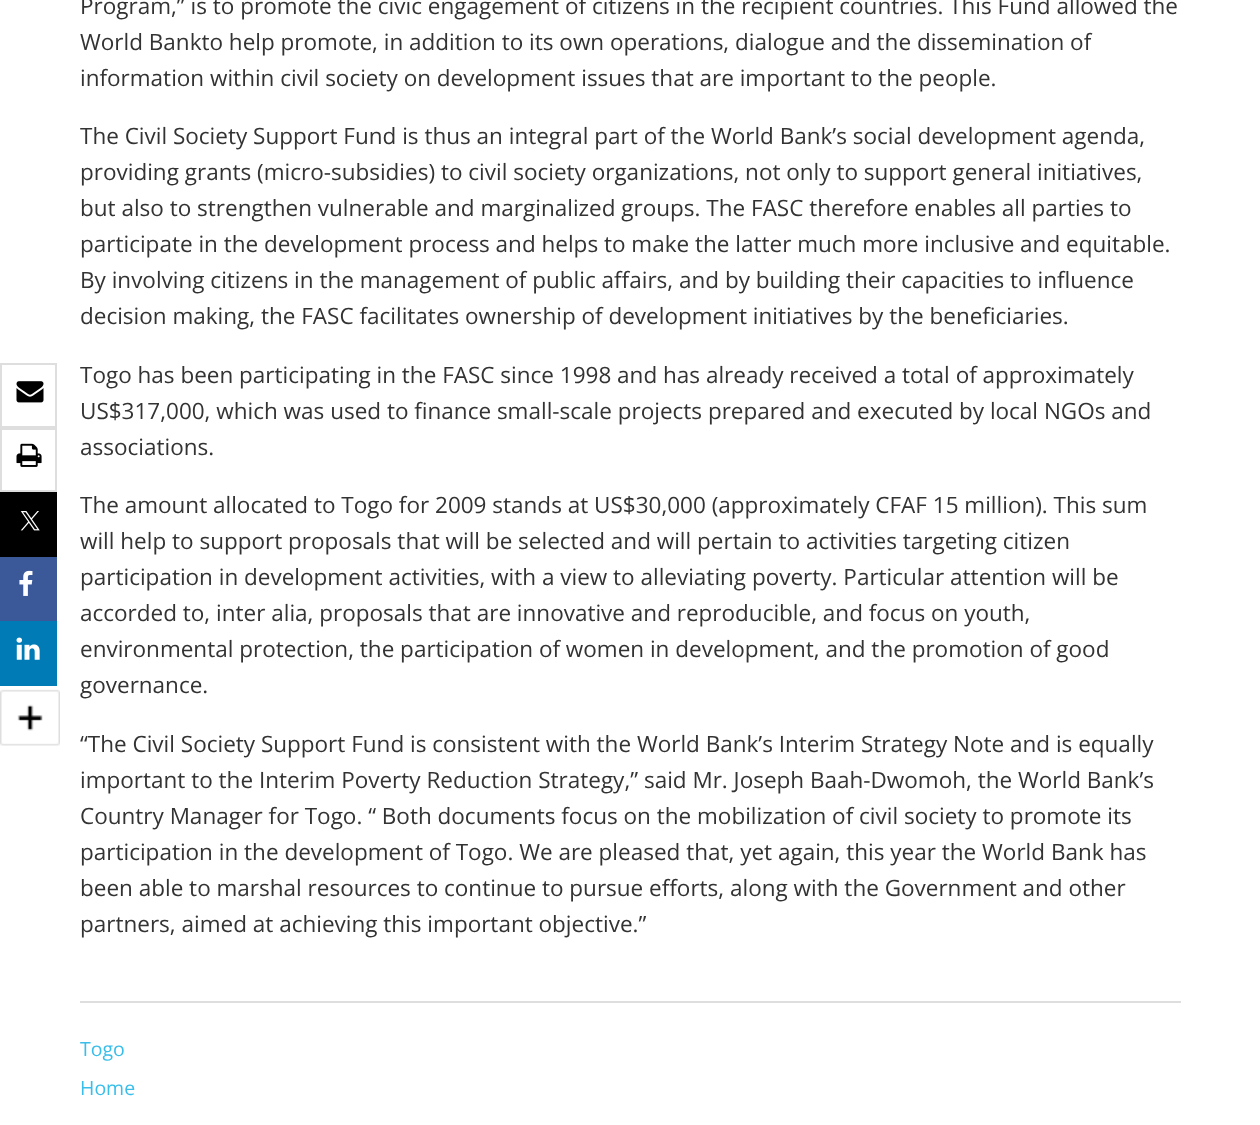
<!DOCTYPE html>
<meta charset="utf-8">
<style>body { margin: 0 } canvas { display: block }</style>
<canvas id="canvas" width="1260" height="1125"></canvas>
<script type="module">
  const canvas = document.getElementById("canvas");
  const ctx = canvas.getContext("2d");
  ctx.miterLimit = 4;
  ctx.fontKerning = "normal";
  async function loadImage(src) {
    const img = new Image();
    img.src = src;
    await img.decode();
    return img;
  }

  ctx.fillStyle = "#ffffff";
  ctx.fillRect(0, 0, 1260, 1125);
  ctx.strokeStyle = "#dedede";
  ctx.lineWidth = 2;
  ctx.strokeRect(1, 364, 55, 63);
  ctx.drawImage(await loadImage("img1.png"), 16, 381, 28, 22);
  ctx.strokeRect(1, 429, 55, 62);
  ctx.drawImage(await loadImage("img2.png"), 16, 443, 26, 24);
  ctx.fillStyle = "#000000";
  ctx.fillRect(0, 492, 57, 65);
  ctx.drawImage(await loadImage("img3.png"), 20, 511, 20, 20);
  ctx.fillStyle = "#3b5998";
  ctx.fillRect(0, 557, 57, 64);
  ctx.drawImage(await loadImage("img4.png"), 19, 570, 14, 26);
  ctx.fillStyle = "#007bb6";
  ctx.fillRect(0, 621, 57, 65);
  ctx.drawImage(await loadImage("img5.png"), 16, 637, 24, 23);
  ctx.drawImage(await loadImage("img6.png"), 0, 689, 60, 57);
  ctx.font = "22.5px Open Sans";
  ctx.fillStyle = "#333333";
  ctx.fillText("Program,” is to promote the civic engagement of citizens in the recipient countries. This Fund allowed the", 80, 14);
  ctx.fillText("World Bankto help promote, in addition to its own operations, dialogue and the dissemination of", 80, 50);
  ctx.fillText("information within civil society on development issues that are important to the people.", 80, 86);
  ctx.fillText("The Civil Society Support Fund is thus an integral part of the World Bank’s social development agenda,", 80, 144);
  ctx.fillText("providing grants (micro-subsidies) to civil society organizations, not only to support general initiatives,", 80, 180);
  ctx.fillText("but also to strengthen vulnerable and marginalized groups. The FASC therefore enables all parties to", 80, 216);
  ctx.fillText("participate in the development process and helps to make the latter much more inclusive and equitable.", 80, 252);
  ctx.fillText("By involving citizens in the management of public affairs, and by building their capacities to influence", 80, 288);
  ctx.fillText("decision making, the FASC facilitates ownership of development initiatives by the beneficiaries.", 80, 324);
  ctx.fillText("Togo has been participating in the FASC since 1998 and has already received a total of approximately", 80, 383);
  ctx.fillText("US$317,000, which was used to finance small-scale projects prepared and executed by local NGOs and", 80, 419);
  ctx.fillText("associations.", 80, 455);
  ctx.fillText("The amount allocated to Togo for 2009 stands at US$30,000 (approximately CFAF 15 million). This sum", 80, 513);
  ctx.fillText("will help to support proposals that will be selected and will pertain to activities targeting citizen", 80, 549);
  ctx.fillText("participation in development activities, with a view to alleviating poverty. Particular attention will be", 80, 585);
  ctx.fillText("accorded to, inter alia, proposals that are innovative and reproducible, and focus on youth,", 80, 621);
  ctx.fillText("environmental protection, the participation of women in development, and the promotion of good", 80, 657);
  ctx.fillText("governance.", 80, 693);
  ctx.fillText("“The Civil Society Support Fund is consistent with the World Bank’s Interim Strategy Note and is equally", 80, 752);
  ctx.fillText("important to the Interim Poverty Reduction Strategy,” said Mr. Joseph Baah-Dwomoh, the World Bank’s", 80, 788);
  ctx.fillText("Country Manager for Togo. “ Both documents focus on the mobilization of civil society to promote its", 80, 824);
  ctx.fillText("participation in the development of Togo. We are pleased that, yet again, this year the World Bank has", 80, 860);
  ctx.fillText("been able to marshal resources to continue to pursue efforts, along with the Government and other", 80, 896);
  ctx.fillText("partners, aimed at achieving this important objective.”", 80, 932);
  ctx.fillStyle = "#dedede";
  ctx.fillRect(80, 1001, 1101, 2);
  ctx.font = "19.5px Open Sans";
  ctx.fillStyle = "#39beea";
  ctx.fillText("Togo", 80, 1056);
  ctx.fillText("Home", 80, 1095);
</script>
